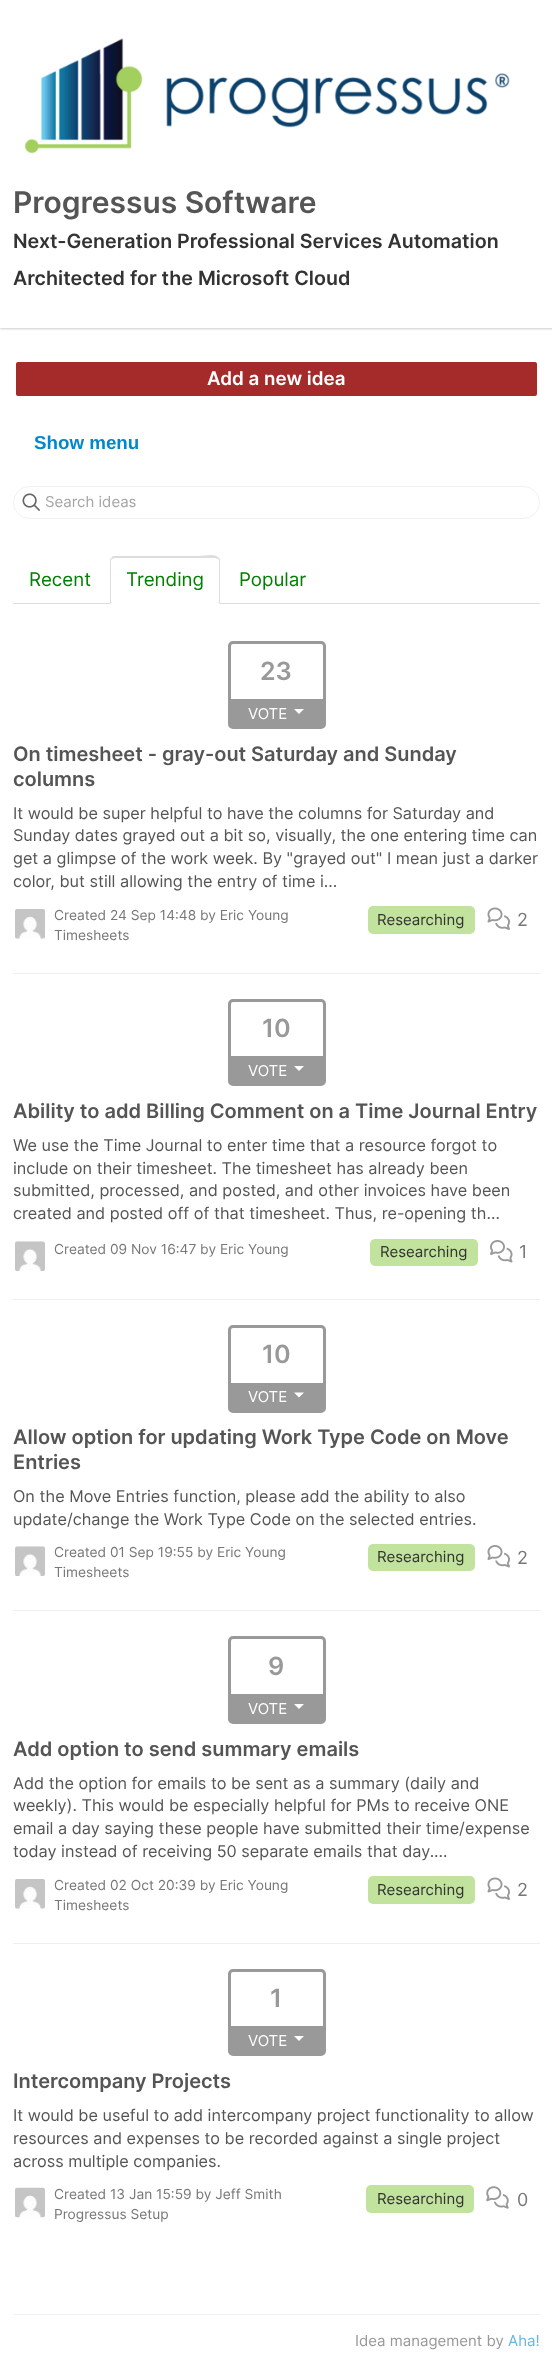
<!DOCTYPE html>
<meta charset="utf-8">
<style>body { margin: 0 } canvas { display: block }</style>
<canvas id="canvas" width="552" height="2353"></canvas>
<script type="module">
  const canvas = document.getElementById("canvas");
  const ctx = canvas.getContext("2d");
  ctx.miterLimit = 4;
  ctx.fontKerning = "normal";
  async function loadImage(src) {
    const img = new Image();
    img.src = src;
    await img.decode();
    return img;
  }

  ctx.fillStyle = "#ffffff";
  ctx.fillRect(0, 0, 552, 2353);
  ctx.fillStyle = "rgba(0, 0, 0, 0.2)";
  ctx.filter = "blur(1px)";
  ctx.beginPath();
  ctx.rect(0, 1, 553, 328);
  ctx.fill();
  ctx.filter = "none";
  ctx.fillStyle = "#ffffff";
  ctx.fillRect(0, 0, 552, 328);
  ctx.drawImage(await loadImage("img1.png"), 24, 38, 486, 116);
  ctx.font = "600 30px Inter";
  ctx.fillStyle = "#555555";
  ctx.fillText("Progressus Software", 13, 213);
  ctx.font = "600 19.7px Inter";
  ctx.fillStyle = "#333333";
  ctx.fillText("Next-Generation Professional Services Automation", 13, 248);
  ctx.fillText("Architected for the Microsoft Cloud", 13, 285);
  ctx.fillStyle = "#a52a2a";
  ctx.beginPath();
  ctx.roundRect(14.5, 360.5, 524, 37, 3.5);
  ctx.fill();
  ctx.strokeStyle = "#ffffff";
  ctx.lineWidth = 3;
  ctx.stroke();
  ctx.font = "600 18.75px Inter";
  ctx.fillStyle = "#ffffff";
  ctx.fillText("Add a new idea", 207, 385);
  ctx.font = "bold 18.75px Liberation Sans";
  ctx.fillStyle = "#0088cc";
  ctx.fillText("Show menu", 34, 449);
  ctx.beginPath();
  ctx.roundRect(13.5, 486.5, 526, 32, 16);
  ctx.strokeStyle = "#f1f1f1";
  ctx.lineWidth = 1;
  ctx.stroke();
  ctx.drawImage(await loadImage("img2.png"), 22, 493, 18, 18);
  ctx.font = "15px Inter";
  ctx.fillStyle = "#a5a5a5";
  ctx.fillText("Search ideas", 45, 507);
  ctx.fillStyle = "#dddddd";
  ctx.fillRect(13, 603, 527, 1);
  ctx.font = "18.75px Inter";
  ctx.fillStyle = "#008000";
  ctx.fillText("Recent", 29, 586);
  ctx.fillStyle = "#ffffff";
  ctx.beginPath();
  ctx.roundRect(110, 556, 110, 48, [5, 5, 0, 0]);
  ctx.fill();
  ctx.fillStyle = "#dddddd";
  ctx.beginPath();
  ctx.moveTo(115, 558);
  ctx.lineTo(112, 559);
  ctx.lineTo(111, 558);
  ctx.lineTo(113, 556);
  ctx.lineTo(199, 556);
  ctx.bezierCurveTo(206, 556, 214, 553, 219, 558);
  ctx.lineTo(218, 559);
  ctx.lineTo(215, 558);
  ctx.closePath();
  ctx.fill();
  ctx.beginPath();
  ctx.moveTo(220, 604);
  ctx.lineTo(220, 561);
  ctx.bezierCurveTo(220, 560, 220, 558, 219, 558);
  ctx.lineTo(218, 559);
  ctx.lineTo(219, 560);
  ctx.lineTo(219, 602);
  ctx.lineTo(218, 602);
  ctx.closePath();
  ctx.fill();
  ctx.beginPath();
  ctx.moveTo(110, 604);
  ctx.lineTo(112, 602);
  ctx.lineTo(111, 602);
  ctx.lineTo(111, 560);
  ctx.lineTo(112, 559);
  ctx.lineTo(111, 558);
  ctx.bezierCurveTo(110, 558, 110, 560, 110, 561);
  ctx.closePath();
  ctx.fill();
  ctx.fillStyle = "#008000";
  ctx.fillText("Trending", 126, 586);
  ctx.fillText("Popular", 239, 586);
  ctx.fillStyle = "#eeeeee";
  ctx.fillRect(13, 973, 527, 1);
  ctx.beginPath();
  ctx.roundRect(229.5, 642.5, 95, 85, 3.5);
  ctx.strokeStyle = "#999999";
  ctx.lineWidth = 3;
  ctx.stroke();
  ctx.font = "600 25px Inter";
  ctx.fillStyle = "#999999";
  ctx.fillText("23", 260, 680);
  ctx.fillRect(231, 699, 92, 27);
  ctx.font = "15px Inter";
  ctx.fillStyle = "#ffffff";
  ctx.fillText("VOTE", 248, 719);
  ctx.beginPath();
  ctx.moveTo(294, 709);
  ctx.lineTo(304, 709);
  ctx.lineTo(299, 714);
  ctx.closePath();
  ctx.fill();
  ctx.font = "600 20px Inter";
  ctx.fillStyle = "#555555";
  ctx.fillText("On timesheet - gray-out Saturday and Sunday", 13, 761);
  ctx.fillText("columns", 13, 786);
  ctx.font = "16.25px Inter";
  ctx.fillText("It would be super helpful to have the columns for Saturday and", 13, 819);
  ctx.fillText("Sunday dates grayed out a bit so, visually, the one entering time can", 13, 841);
  ctx.fillText("get a glimpse of the work week. By \"grayed out\" I mean just a darker", 13, 864);
  ctx.fillText("color, but still allowing the entry of time i...", 13, 887);
  ctx.drawImage(await loadImage("img3.png"), 15, 909, 30, 30);
  ctx.font = "13.75px Inter";
  ctx.fillStyle = "#777777";
  ctx.fillText("Created 24 Sep 14:48 by Eric Young", 54, 920);
  ctx.fillText("Timesheets", 54, 940);
  ctx.fillStyle = "#c1e39d";
  ctx.beginPath();
  ctx.roundRect(368, 906, 107, 28, 5);
  ctx.fill();
  ctx.font = "15px Inter";
  ctx.fillStyle = "#333333";
  ctx.fillText("Researching", 377, 925);
  ctx.drawImage(await loadImage("img4.png"), 487, 907, 23, 23);
  ctx.font = "18px Inter";
  ctx.fillStyle = "#777777";
  ctx.fillText("2", 517, 926);
  ctx.fillStyle = "#eeeeee";
  ctx.fillRect(13, 1299, 527, 1);
  ctx.beginPath();
  ctx.roundRect(229.5, 1000.5, 95, 84, 3.5);
  ctx.stroke();
  ctx.font = "600 25px Inter";
  ctx.fillStyle = "#999999";
  ctx.fillText("10", 262, 1037);
  ctx.fillRect(231, 1056, 92, 27);
  ctx.font = "15px Inter";
  ctx.fillStyle = "#ffffff";
  ctx.fillText("VOTE", 248, 1076);
  ctx.beginPath();
  ctx.moveTo(294, 1066);
  ctx.lineTo(304, 1066);
  ctx.lineTo(299, 1071);
  ctx.closePath();
  ctx.fill();
  ctx.font = "600 20px Inter";
  ctx.fillStyle = "#555555";
  ctx.fillText("Ability to add Billing Comment on a Time Journal Entry", 13, 1118);
  ctx.font = "16.25px Inter";
  ctx.fillText("We use the Time Journal to enter time that a resource forgot to", 13, 1151);
  ctx.fillText("include on their timesheet. The timesheet has already been", 13, 1174);
  ctx.fillText("submitted, processed, and posted, and other invoices have been", 13, 1196);
  ctx.fillText("created and posted off of that timesheet. Thus, re-opening th...", 13, 1219);
  ctx.drawImage(await loadImage("img5.png"), 15, 1241, 30, 30);
  ctx.font = "13.75px Inter";
  ctx.fillStyle = "#777777";
  ctx.fillText("Created 09 Nov 16:47 by Eric Young", 54, 1254);
  ctx.fillStyle = "#c1e39d";
  ctx.beginPath();
  ctx.roundRect(370, 1239, 108, 27, 5);
  ctx.fill();
  ctx.font = "15px Inter";
  ctx.fillStyle = "#333333";
  ctx.fillText("Researching", 380, 1257);
  ctx.drawImage(await loadImage("img6.png"), 490, 1240, 23, 23);
  ctx.font = "18px Inter";
  ctx.fillStyle = "#777777";
  ctx.fillText("1", 519, 1258);
  ctx.fillStyle = "#eeeeee";
  ctx.fillRect(13, 1610, 527, 1);
  ctx.beginPath();
  ctx.roundRect(229.5, 1326.5, 95, 85, 3.5);
  ctx.stroke();
  ctx.font = "600 25px Inter";
  ctx.fillStyle = "#999999";
  ctx.fillText("10", 262, 1363);
  ctx.fillRect(231, 1383, 92, 27);
  ctx.font = "15px Inter";
  ctx.fillStyle = "#ffffff";
  ctx.fillText("VOTE", 248, 1402);
  ctx.beginPath();
  ctx.moveTo(294, 1392.5);
  ctx.lineTo(304, 1392.5);
  ctx.lineTo(299, 1397.5);
  ctx.closePath();
  ctx.fill();
  ctx.font = "600 20px Inter";
  ctx.fillStyle = "#555555";
  ctx.fillText("Allow option for updating Work Type Code on Move", 13, 1444);
  ctx.fillText("Entries", 13, 1469);
  ctx.font = "16.25px Inter";
  ctx.fillText("On the Move Entries function, please add the ability to also", 13, 1502);
  ctx.fillText("update/change the Work Type Code on the selected entries.", 13, 1525);
  ctx.drawImage(await loadImage("img7.png"), 15, 1546, 30, 30);
  ctx.font = "13.75px Inter";
  ctx.fillStyle = "#777777";
  ctx.fillText("Created 01 Sep 19:55 by Eric Young", 54, 1557);
  ctx.fillText("Timesheets", 54, 1577);
  ctx.fillStyle = "#c1e39d";
  ctx.beginPath();
  ctx.roundRect(368, 1544, 107, 27, 5);
  ctx.fill();
  ctx.font = "15px Inter";
  ctx.fillStyle = "#333333";
  ctx.fillText("Researching", 377, 1562);
  ctx.drawImage(await loadImage("img8.png"), 487, 1545, 23, 23);
  ctx.font = "18px Inter";
  ctx.fillStyle = "#777777";
  ctx.fillText("2", 517, 1564);
  ctx.fillStyle = "#eeeeee";
  ctx.fillRect(13, 1943, 527, 1);
  ctx.beginPath();
  ctx.roundRect(229.5, 1637.5, 95, 85, 3.5);
  ctx.stroke();
  ctx.font = "600 25px Inter";
  ctx.fillStyle = "#999999";
  ctx.fillText("9", 268, 1675);
  ctx.fillRect(231, 1694, 92, 27);
  ctx.font = "15px Inter";
  ctx.fillStyle = "#ffffff";
  ctx.fillText("VOTE", 248, 1714);
  ctx.beginPath();
  ctx.moveTo(294, 1704);
  ctx.lineTo(304, 1704);
  ctx.lineTo(299, 1709);
  ctx.closePath();
  ctx.fill();
  ctx.font = "600 20px Inter";
  ctx.fillStyle = "#555555";
  ctx.fillText("Add option to send summary emails", 13, 1756);
  ctx.font = "16.25px Inter";
  ctx.fillText("Add the option for emails to be sent as a summary (daily and", 13, 1789);
  ctx.fillText("weekly). This would be especially helpful for PMs to receive ONE", 13, 1811);
  ctx.fillText("email a day saying these people have submitted their time/expense", 13, 1834);
  ctx.fillText("today instead of receiving 50 separate emails that day....", 13, 1857);
  ctx.drawImage(await loadImage("img3.png"), 15, 1879, 30, 30);
  ctx.font = "13.75px Inter";
  ctx.fillStyle = "#777777";
  ctx.fillText("Created 02 Oct 20:39 by Eric Young", 54, 1890);
  ctx.fillText("Timesheets", 54, 1910);
  ctx.fillStyle = "#c1e39d";
  ctx.beginPath();
  ctx.roundRect(368, 1876, 107, 28, 5);
  ctx.fill();
  ctx.font = "15px Inter";
  ctx.fillStyle = "#333333";
  ctx.fillText("Researching", 377, 1895);
  ctx.drawImage(await loadImage("img4.png"), 487, 1877, 23, 23);
  ctx.font = "18px Inter";
  ctx.fillStyle = "#777777";
  ctx.fillText("2", 517, 1896);
  ctx.beginPath();
  ctx.roundRect(229.5, 1970.5, 95, 84, 3.5);
  ctx.stroke();
  ctx.font = "600 25px Inter";
  ctx.fillStyle = "#999999";
  ctx.fillText("1", 270, 2007);
  ctx.fillRect(231, 2026, 92, 27);
  ctx.font = "15px Inter";
  ctx.fillStyle = "#ffffff";
  ctx.fillText("VOTE", 248, 2046);
  ctx.beginPath();
  ctx.moveTo(294, 2036);
  ctx.lineTo(304, 2036);
  ctx.lineTo(299, 2041);
  ctx.closePath();
  ctx.fill();
  ctx.font = "600 20px Inter";
  ctx.fillStyle = "#555555";
  ctx.fillText("Intercompany Projects", 13, 2088);
  ctx.font = "16.25px Inter";
  ctx.fillText("It would be useful to add intercompany project functionality to allow", 13, 2121);
  ctx.fillText("resources and expenses to be recorded against a single project", 13, 2144);
  ctx.fillText("across multiple companies.", 13, 2167);
  ctx.drawImage(await loadImage("img9.png"), 15, 2187, 30, 31);
  ctx.font = "13.75px Inter";
  ctx.fillStyle = "#777777";
  ctx.fillText("Created 13 Jan 15:59 by Jeff Smith", 54, 2199);
  ctx.fillText("Progressus Setup", 54, 2219);
  ctx.fillStyle = "#c1e39d";
  ctx.beginPath();
  ctx.roundRect(366, 2185, 108, 28, 5);
  ctx.fill();
  ctx.font = "15px Inter";
  ctx.fillStyle = "#333333";
  ctx.fillText("Researching", 377, 2204);
  ctx.drawImage(await loadImage("img10.png"), 486, 2186, 23, 23);
  ctx.font = "18px Inter";
  ctx.fillStyle = "#777777";
  ctx.fillText("0", 517, 2206);
  ctx.fillStyle = "#f1f1f1";
  ctx.fillRect(13, 2314, 527, 1);
  ctx.font = "15px Inter";
  ctx.fillStyle = "#999999";
  ctx.fillText("Idea management by", 355, 2346);
  ctx.fillStyle = "#66b8e0";
  ctx.fillText("Aha!", 508, 2346);
</script>
